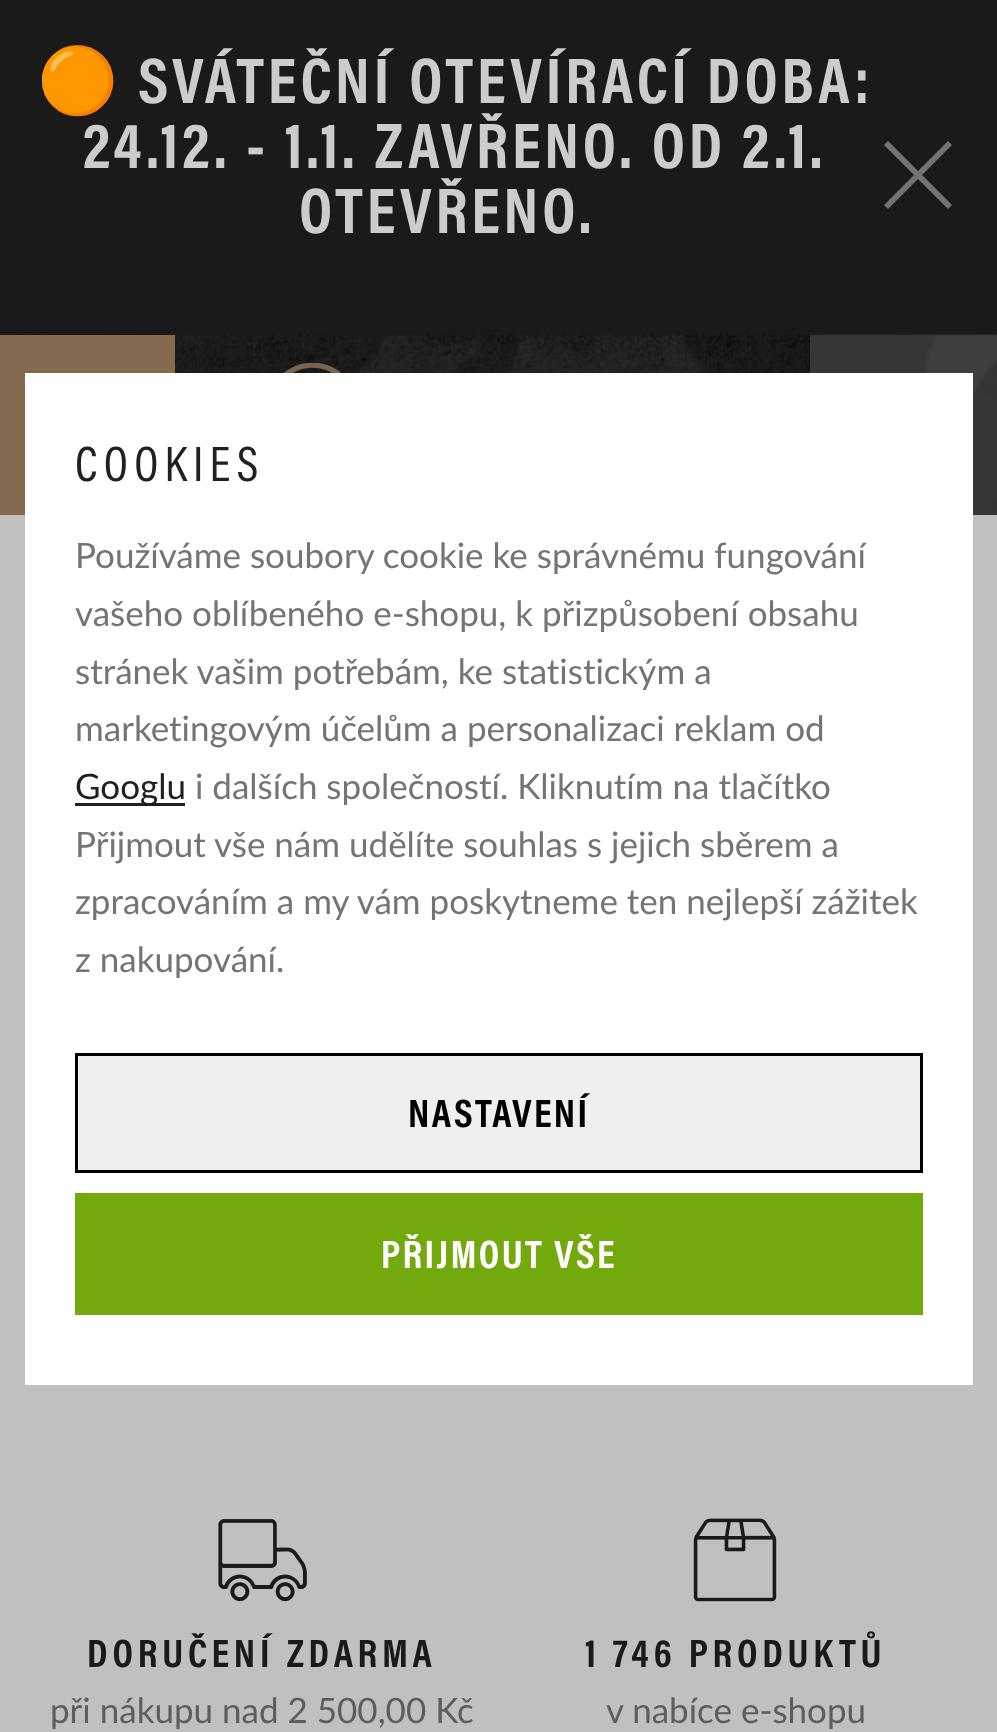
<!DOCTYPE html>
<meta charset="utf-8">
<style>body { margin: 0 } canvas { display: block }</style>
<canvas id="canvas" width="997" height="1732"></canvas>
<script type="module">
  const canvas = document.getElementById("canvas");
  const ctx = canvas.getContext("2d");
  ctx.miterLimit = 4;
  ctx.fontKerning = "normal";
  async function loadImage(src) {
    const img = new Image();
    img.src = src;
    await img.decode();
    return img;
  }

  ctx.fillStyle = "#c0c0c0";
  ctx.fillRect(0, 0, 997, 1732);
  ctx.fillStyle = "#1a1a1a";
  ctx.fillRect(0, 0, 997, 335);
  ctx.letterSpacing = "3.9px";
  ctx.font = "65px Noto Color Emoji";
  ctx.fillStyle = "#cccccc";
  ctx.fillText("🟠", 37, 103);
  ctx.font = "bold 65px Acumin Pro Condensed";
  ctx.fillText("SVÁTEČNÍ OTEVÍRACÍ DOBA:", 138, 103);
  ctx.fillText("24.12. - 1.1. ZAVŘENO. OD 2.1.", 83, 168);
  ctx.fillText("OTEVŘENO.", 299, 233);
  ctx.fillStyle = "#737373";
  ctx.beginPath();
  ctx.moveTo(948, 141);
  ctx.lineTo(952, 145);
  ctx.lineTo(922, 175);
  ctx.lineTo(952, 205);
  ctx.lineTo(948, 209);
  ctx.lineTo(918, 179);
  ctx.lineTo(888, 209);
  ctx.lineTo(884, 205);
  ctx.lineTo(914, 175);
  ctx.lineTo(884, 145);
  ctx.lineTo(888, 141);
  ctx.lineTo(918, 171);
  ctx.closePath();
  ctx.fill();
  ctx.fillStyle = "#1a1a1a";
  ctx.fillRect(175, 335, 635, 2);
  ctx.drawImage(await loadImage("img1.png"), 0, 334, 997, 39);
  ctx.fillStyle = "#846a4e";
  ctx.fillRect(0, 335, 175, 180);
  ctx.drawImage(await loadImage("img2.png"), 283, 363, 59, 10);
  ctx.fillStyle = "#363636";
  ctx.fillRect(810, 335, 187, 180);
  ctx.drawImage(await loadImage("img3.png"), 810, 334, 187, 181);
  ctx.fillStyle = "#ffffff";
  ctx.fillRect(25, 373, 948, 1012);
  ctx.letterSpacing = "6px";
  ctx.font = "50px Acumin Pro Condensed";
  ctx.fillStyle = "#202020";
  ctx.fillText("COOKIES", 75, 481);
  ctx.letterSpacing = "0px";
  ctx.font = "35px Lato";
  ctx.fillStyle = "#747474";
  ctx.fillText("Používáme soubory cookie ke správnému fungování", 75, 568);
  ctx.fillText("vašeho oblíbeného e-shopu, k přizpůsobení obsahu", 75, 626);
  ctx.fillText("stránek vašim potřebám, ke statistickým a", 75, 684);
  ctx.fillText("marketingovým účelům a personalizaci reklam od", 75, 741);
  ctx.fillStyle = "#202020";
  ctx.fillRect(75, 803, 110, 3);
  ctx.fillText("Googlu", 75, 799);
  ctx.fillStyle = "#747474";
  ctx.fillText("i dalších společností. Kliknutím na tlačítko", 195, 799);
  ctx.fillText("Přijmout vše nám udělíte souhlas s jejich sběrem a", 75, 857);
  ctx.fillText("zpracováním a my vám poskytneme ten nejlepší zážitek", 75, 914);
  ctx.fillText("z nakupování.", 75, 972);
  ctx.fillStyle = "#efefef";
  ctx.beginPath();
  ctx.rect(76.5, 1054.5, 845, 117);
  ctx.fill();
  ctx.strokeStyle = "#000000";
  ctx.lineWidth = 3;
  ctx.stroke();
  ctx.letterSpacing = "2.4px";
  ctx.font = "bold 40px Acumin Pro Condensed";
  ctx.fillStyle = "#000000";
  ctx.fillText("NASTAVENÍ", 408, 1127);
  ctx.fillStyle = "#74a90d";
  ctx.fillRect(75, 1193, 848, 122);
  ctx.fillStyle = "#ffffff";
  ctx.fillText("PŘIJMOUT VŠE", 381, 1268);
  ctx.drawImage(await loadImage("img4.png"), 218, 1519, 89, 83);
  ctx.letterSpacing = "4.75px";
  ctx.fillStyle = "#1a1a1a";
  ctx.fillText("DORUČENÍ ZDARMA", 87, 1667);
  ctx.letterSpacing = "0px";
  ctx.font = "35px Lato";
  ctx.fillStyle = "#5d5d5d";
  ctx.fillText("při nákupu nad 2 500,00 Kč", 50, 1723);
  ctx.drawImage(await loadImage("img5.png"), 693, 1518, 84, 84);
  ctx.letterSpacing = "4.75px";
  ctx.font = "bold 40px Acumin Pro Condensed";
  ctx.fillStyle = "#1a1a1a";
  ctx.fillText("1 746 PRODUKTŮ", 585, 1667);
  ctx.letterSpacing = "0px";
  ctx.font = "35px Lato";
  ctx.fillStyle = "#5d5d5d";
  ctx.fillText("v nabíce e-shopu", 606, 1723);
</script>
